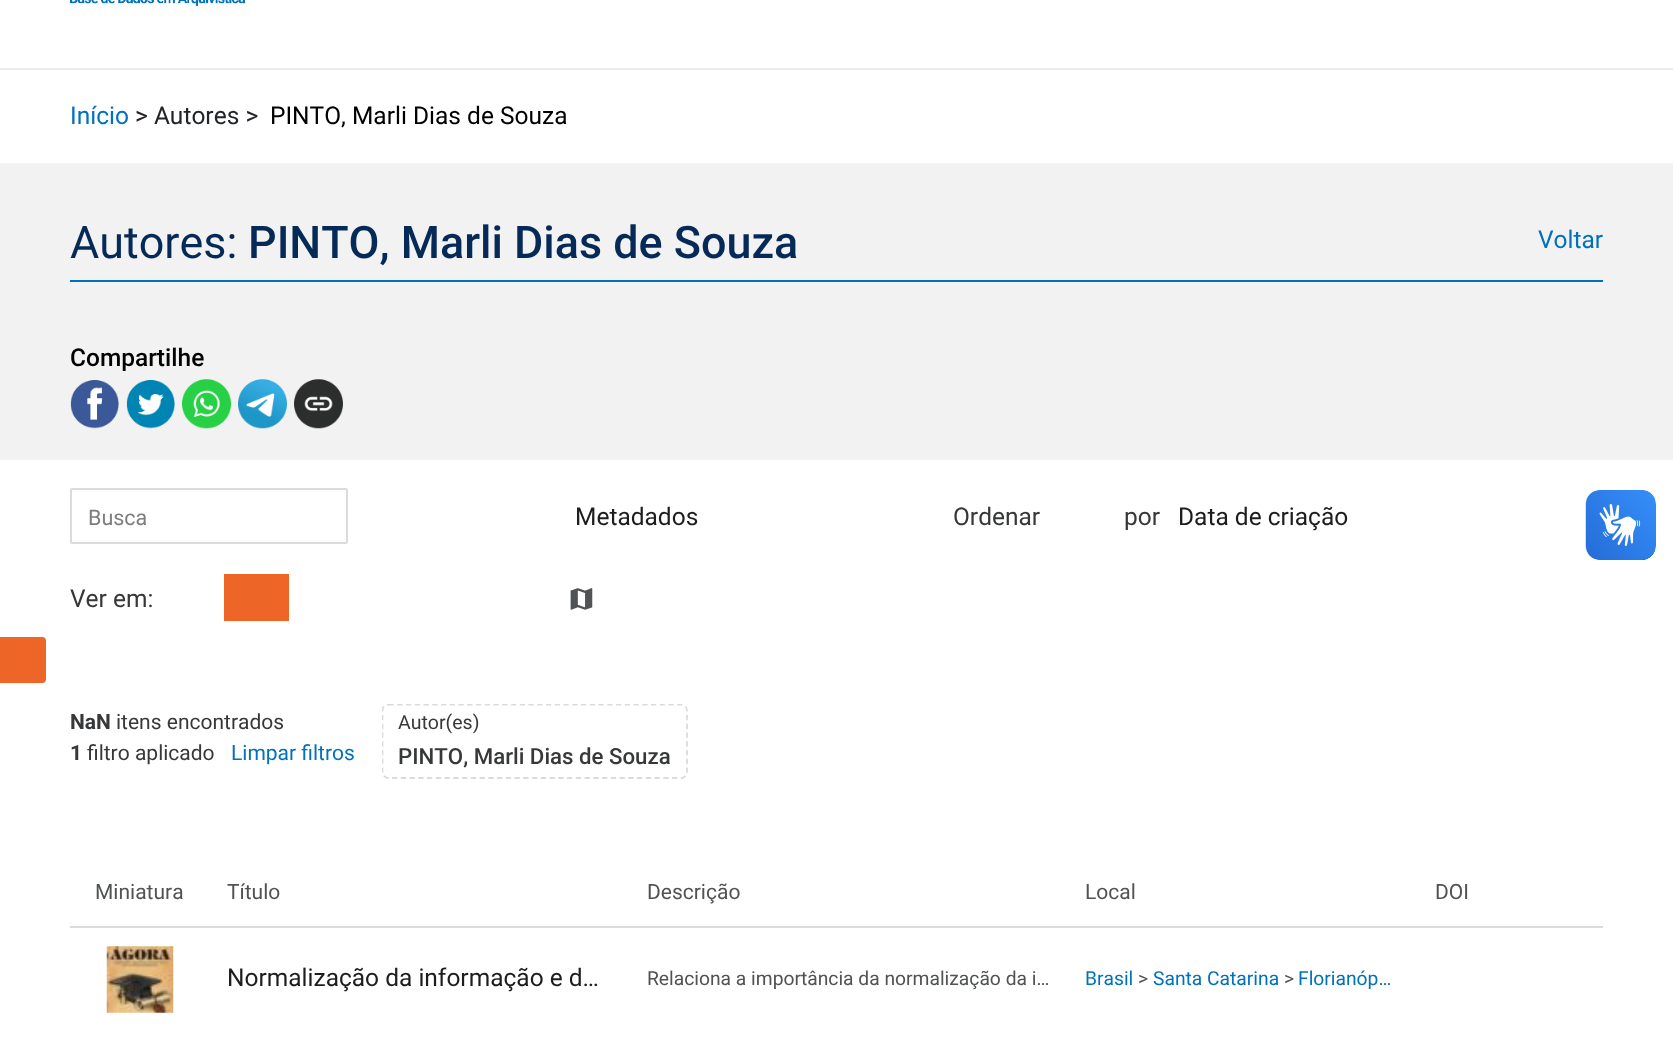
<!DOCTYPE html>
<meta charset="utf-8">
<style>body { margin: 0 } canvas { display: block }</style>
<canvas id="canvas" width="1673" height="1050"></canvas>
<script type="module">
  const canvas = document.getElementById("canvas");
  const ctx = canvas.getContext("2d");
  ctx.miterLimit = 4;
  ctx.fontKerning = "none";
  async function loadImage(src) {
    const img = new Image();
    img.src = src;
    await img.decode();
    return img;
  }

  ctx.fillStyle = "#ffffff";
  ctx.fillRect(0, 0, 1673, 1050);
  ctx.fillStyle = "#ededed";
  ctx.fillRect(0, 68, 1673, 2);
  ctx.drawImage(await loadImage("img1.png"), 70, 0, 176, 7);
  ctx.font = "24.5px Roboto";
  ctx.fillStyle = "#0071bb";
  ctx.fillText("Início", 70, 124);
  ctx.fillStyle = "#212529";
  ctx.fillText("> Autores >", 135, 124);
  ctx.fillStyle = "#000000";
  ctx.fillText("PINTO, Marli Dias de Souza", 270, 124);
  ctx.fillStyle = "#f2f2f2";
  ctx.fillRect(0, 163, 1673, 297);
  ctx.fillStyle = "#0071bb";
  ctx.fillRect(70, 280, 1533, 2);
  ctx.font = "44.9px Roboto";
  ctx.fillStyle = "#062a57";
  ctx.fillText("Autores:", 70, 258);
  ctx.font = "500 44.9px Roboto";
  ctx.fillText("PINTO, Marli Dias de Souza", 248, 258);
  ctx.font = "24.5px Roboto";
  ctx.fillStyle = "#0071bb";
  ctx.fillText("Voltar", 1538, 248);
  ctx.font = "500 24.5px Roboto";
  ctx.fillStyle = "#000000";
  ctx.fillText("Compartilhe", 70, 366);
  ctx.drawImage(await loadImage("img2.png"), 70, 380, 49, 49);
  ctx.drawImage(await loadImage("img3.png"), 126, 380, 49, 49);
  ctx.drawImage(await loadImage("img4.png"), 182, 379, 49, 50);
  ctx.drawImage(await loadImage("img5.png"), 238, 379, 49, 50);
  ctx.drawImage(await loadImage("img6.png"), 294, 379, 49, 50);
  ctx.beginPath();
  ctx.roundRect(71, 489, 276, 54, 1);
  ctx.strokeStyle = "#dbdbdb";
  ctx.lineWidth = 2;
  ctx.stroke();
  ctx.font = "21.5px Roboto";
  ctx.fillStyle = "#7c7d7e";
  ctx.fillText("Busca", 88, 525);
  ctx.font = "24.5px Roboto";
  ctx.fillStyle = "#1d1d1d";
  ctx.fillText("Metadados", 575, 525);
  ctx.fillStyle = "#373839";
  ctx.fillText("Ordenar", 953, 525);
  ctx.fillText("por", 1124, 525);
  ctx.fillStyle = "#1d1d1d";
  ctx.fillText("Data de criação", 1178, 525);
  ctx.fillStyle = "#373839";
  ctx.fillText("Ver em:", 70, 607);
  ctx.fillStyle = "#ed6628";
  ctx.fillRect(224, 574, 65, 47);
  ctx.drawImage(await loadImage("img7.png"), 570, 588, 23, 22);
  ctx.beginPath();
  ctx.roundRect(0, 637, 46, 46, [0, 4, 4, 0]);
  ctx.fill();
  ctx.font = "bold 21px Roboto";
  ctx.fillStyle = "#373839";
  ctx.fillText("NaN", 70, 729);
  ctx.font = "21px Roboto";
  ctx.fillText("itens encontrados", 116, 729);
  ctx.font = "bold 21px Roboto";
  ctx.fillText("1", 70, 760);
  ctx.font = "21px Roboto";
  ctx.fillText("filtro aplicado", 87, 760);
  ctx.fillStyle = "#0071bb";
  ctx.fillText("Limpar filtros", 231, 760);
  ctx.save();
  ctx.beginPath();
  ctx.rect(382, 704, 1221, 103);
  ctx.clip();
  ctx.beginPath();
  ctx.moveTo(388.5, 704.5);
  ctx.lineTo(681, 704.5);
  ctx.bezierCurveTo(684, 704.5, 687, 707, 687, 710.5);
  ctx.lineTo(687, 772);
  ctx.bezierCurveTo(687, 775, 684, 778, 681, 778);
  ctx.lineTo(388.5, 778);
  ctx.bezierCurveTo(385, 778, 382.5, 775, 382.5, 772);
  ctx.lineTo(382.5, 710.5);
  ctx.bezierCurveTo(382.5, 707, 385, 704.5, 388.5, 704.5);
  ctx.closePath();
  ctx.lineWidth = 1.8;
  ctx.setLineDash([5.25, 3.5]);
  ctx.stroke();
  ctx.restore();
  ctx.font = "19.5px Roboto";
  ctx.fillStyle = "#373839";
  ctx.fillText("Autor(es)", 398, 729);
  ctx.font = "500 22.25px Roboto";
  ctx.fillText("PINTO, Marli Dias de Souza", 398, 764);
  ctx.fillStyle = "#dbdbdb";
  ctx.fillRect(70, 926, 1533, 2);
  ctx.font = "21px Roboto";
  ctx.fillStyle = "#505253";
  ctx.fillText("Miniatura", 95, 899);
  ctx.fillText("Título", 227, 899);
  ctx.fillText("Descrição", 647, 899);
  ctx.fillText("Local", 1085, 899);
  ctx.fillText("DOI", 1435, 899);
  ctx.drawImage(await loadImage("img8.png"), 106, 946, 68, 67);
  ctx.font = "24.5px Roboto";
  ctx.fillStyle = "#1d1d1d";
  ctx.fillText("Normalização da informação e d…", 227, 986);
  ctx.font = "19.25px Roboto";
  ctx.fillStyle = "#505253";
  ctx.fillText("Relaciona a importância da normalização da i…", 647, 985);
  ctx.fillStyle = "#0071bb";
  ctx.fillText("Brasil", 1085, 985);
  ctx.fillStyle = "#505253";
  ctx.fillText(">", 1138, 985);
  ctx.fillStyle = "#0071bb";
  ctx.fillText("Santa Catarina", 1153, 985);
  ctx.fillStyle = "#505253";
  ctx.fillText(">", 1284, 985);
  ctx.fillStyle = "#0071bb";
  ctx.fillText("Florianóp…", 1298, 985);
  ctx.drawImage(await loadImage("img9.png"), 1585, 490, 71, 70);
  ctx.drawImage(await loadImage("img10.png"), 1586, 490, 70, 70);
</script>
